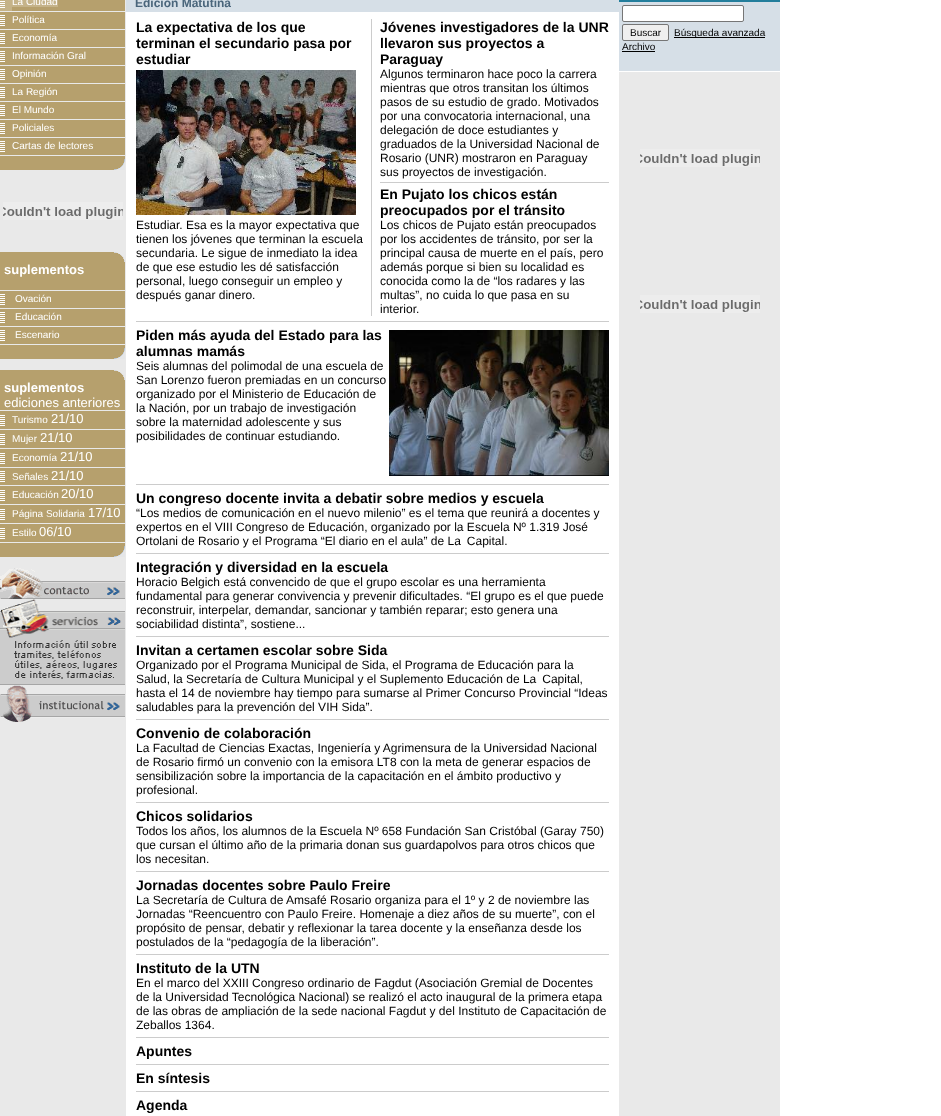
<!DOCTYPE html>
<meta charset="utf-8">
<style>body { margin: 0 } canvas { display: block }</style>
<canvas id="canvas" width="941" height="1116"></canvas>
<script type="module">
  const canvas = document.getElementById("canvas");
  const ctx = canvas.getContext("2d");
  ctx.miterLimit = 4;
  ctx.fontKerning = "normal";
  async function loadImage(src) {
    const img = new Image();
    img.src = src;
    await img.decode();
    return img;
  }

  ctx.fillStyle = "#ffffff";
  ctx.fillRect(0, 0, 941, 1116);
  ctx.fillStyle = "#e9e9e9";
  ctx.fillRect(0, 0, 126, 1116);
  ctx.fillStyle = "#b6a06d";
  ctx.fillRect(0, 0, 125, 170);
  ctx.fillStyle = "#c5b389";
  ctx.fillRect(0, 0, 12, 11);
  ctx.drawImage(await loadImage("img1.png"), 0, 1, 5, 7);
  ctx.fillRect(12, 0, 46, 7);
  ctx.font = "10px Liberation Sans";
  ctx.fillStyle = "#ffffff";
  ctx.fillText("La Ciudad", 12, 5);
  ctx.fillStyle = "#e9e9e9";
  ctx.fillRect(0, 11, 125, 1);
  ctx.drawImage(await loadImage("img2.png"), 0, 15, 5, 11);
  ctx.fillStyle = "#ffffff";
  ctx.fillText("Política", 12, 23);
  ctx.fillStyle = "#e9e9e9";
  ctx.fillRect(0, 29, 125, 1);
  ctx.drawImage(await loadImage("img2.png"), 0, 33, 5, 11);
  ctx.fillStyle = "#ffffff";
  ctx.fillText("Economía", 12, 41);
  ctx.fillStyle = "#e9e9e9";
  ctx.fillRect(0, 47, 125, 1);
  ctx.drawImage(await loadImage("img2.png"), 0, 51, 5, 11);
  ctx.fillStyle = "#ffffff";
  ctx.fillText("Información Gral", 12, 59);
  ctx.fillStyle = "#e9e9e9";
  ctx.fillRect(0, 65, 125, 1);
  ctx.drawImage(await loadImage("img2.png"), 0, 69, 5, 11);
  ctx.fillStyle = "#ffffff";
  ctx.fillText("Opinión", 12, 77);
  ctx.fillStyle = "#e9e9e9";
  ctx.fillRect(0, 83, 125, 1);
  ctx.drawImage(await loadImage("img2.png"), 0, 87, 5, 11);
  ctx.fillStyle = "#ffffff";
  ctx.fillText("La Región", 12, 95);
  ctx.fillStyle = "#e9e9e9";
  ctx.fillRect(0, 101, 125, 1);
  ctx.drawImage(await loadImage("img2.png"), 0, 105, 5, 11);
  ctx.fillStyle = "#ffffff";
  ctx.fillText("El Mundo", 12, 113);
  ctx.fillStyle = "#e9e9e9";
  ctx.fillRect(0, 119, 125, 1);
  ctx.drawImage(await loadImage("img2.png"), 0, 123, 5, 11);
  ctx.fillStyle = "#ffffff";
  ctx.fillText("Policiales", 12, 131);
  ctx.fillStyle = "#e9e9e9";
  ctx.fillRect(0, 137, 125, 1);
  ctx.drawImage(await loadImage("img2.png"), 0, 141, 5, 11);
  ctx.fillStyle = "#ffffff";
  ctx.fillText("Cartas de lectores", 12, 149);
  ctx.fillStyle = "#e9e9e9";
  ctx.fillRect(0, 155, 125, 1);
  ctx.drawImage(await loadImage("img3.png"), 114, 159, 11, 11);
  ctx.drawImage(await loadImage("img4.png"), 3, 202, 120, 18);
  ctx.fillStyle = "#b6a06d";
  ctx.fillRect(0, 252, 125, 107);
  ctx.drawImage(await loadImage("img5.png"), 114, 252, 11, 10);
  ctx.font = "bold 13px Liberation Sans";
  ctx.fillStyle = "#ffffff";
  ctx.fillText("suplementos", 4, 274);
  ctx.fillStyle = "#e9e9e9";
  ctx.fillRect(0, 290, 125, 1);
  ctx.drawImage(await loadImage("img2.png"), 0, 294, 5, 11);
  ctx.font = "10px Liberation Sans";
  ctx.fillStyle = "#ffffff";
  ctx.fillText("Ovación", 15, 302);
  ctx.fillStyle = "#e9e9e9";
  ctx.fillRect(0, 308, 125, 1);
  ctx.drawImage(await loadImage("img2.png"), 0, 312, 5, 11);
  ctx.fillStyle = "#ffffff";
  ctx.fillText("Educación", 15, 320);
  ctx.fillStyle = "#e9e9e9";
  ctx.fillRect(0, 326, 125, 1);
  ctx.drawImage(await loadImage("img2.png"), 0, 330, 5, 11);
  ctx.fillStyle = "#ffffff";
  ctx.fillText("Escenario", 15, 338);
  ctx.fillStyle = "#e9e9e9";
  ctx.fillRect(0, 344, 125, 1);
  ctx.drawImage(await loadImage("img3.png"), 114, 348, 11, 11);
  ctx.fillStyle = "#b6a06d";
  ctx.fillRect(0, 370, 125, 187);
  ctx.drawImage(await loadImage("img5.png"), 114, 370, 11, 10);
  ctx.font = "bold 13px Liberation Sans";
  ctx.fillStyle = "#ffffff";
  ctx.fillText("suplementos", 4, 392);
  ctx.font = "13px Liberation Sans";
  ctx.fillText("ediciones anteriores", 4, 407);
  ctx.fillStyle = "#e9e9e9";
  ctx.fillRect(0, 410, 125, 1);
  ctx.drawImage(await loadImage("img2.png"), 0, 415, 5, 11);
  ctx.font = "10px Liberation Sans";
  ctx.fillStyle = "#ffffff";
  ctx.fillText("Turismo", 12, 423);
  ctx.font = "13px Liberation Sans";
  ctx.fillText("21/10", 51, 423);
  ctx.fillStyle = "#e9e9e9";
  ctx.fillRect(0, 429, 125, 1);
  ctx.drawImage(await loadImage("img2.png"), 0, 434, 5, 11);
  ctx.font = "10px Liberation Sans";
  ctx.fillStyle = "#ffffff";
  ctx.fillText("Mujer", 12, 442);
  ctx.font = "13px Liberation Sans";
  ctx.fillText("21/10", 40, 442);
  ctx.fillStyle = "#e9e9e9";
  ctx.fillRect(0, 448, 125, 1);
  ctx.drawImage(await loadImage("img2.png"), 0, 453, 5, 11);
  ctx.font = "10px Liberation Sans";
  ctx.fillStyle = "#ffffff";
  ctx.fillText("Economía", 12, 461);
  ctx.font = "13px Liberation Sans";
  ctx.fillText("21/10", 60, 461);
  ctx.fillStyle = "#e9e9e9";
  ctx.fillRect(0, 467, 125, 1);
  ctx.drawImage(await loadImage("img2.png"), 0, 471, 5, 11);
  ctx.font = "10px Liberation Sans";
  ctx.fillStyle = "#ffffff";
  ctx.fillText("Señales", 12, 480);
  ctx.font = "13px Liberation Sans";
  ctx.fillText("21/10", 51, 480);
  ctx.fillStyle = "#e9e9e9";
  ctx.fillRect(0, 485, 125, 1);
  ctx.drawImage(await loadImage("img2.png"), 0, 490, 5, 11);
  ctx.font = "10px Liberation Sans";
  ctx.fillStyle = "#ffffff";
  ctx.fillText("Educación", 12, 498);
  ctx.font = "13px Liberation Sans";
  ctx.fillText("20/10", 61, 498);
  ctx.fillStyle = "#e9e9e9";
  ctx.fillRect(0, 504, 125, 1);
  ctx.drawImage(await loadImage("img2.png"), 0, 509, 5, 11);
  ctx.font = "10px Liberation Sans";
  ctx.fillStyle = "#ffffff";
  ctx.fillText("Página Solidaria", 12, 517);
  ctx.font = "13px Liberation Sans";
  ctx.fillText("17/10", 88, 517);
  ctx.fillStyle = "#e9e9e9";
  ctx.fillRect(0, 523, 125, 1);
  ctx.drawImage(await loadImage("img2.png"), 0, 528, 5, 11);
  ctx.font = "10px Liberation Sans";
  ctx.fillStyle = "#ffffff";
  ctx.fillText("Estilo", 12, 536);
  ctx.font = "13px Liberation Sans";
  ctx.fillText("06/10", 39, 536);
  ctx.fillStyle = "#e9e9e9";
  ctx.fillRect(0, 542, 125, 1);
  ctx.drawImage(await loadImage("img3.png"), 114, 546, 11, 11);
  ctx.drawImage(await loadImage("img6.png"), 0, 568, 125, 31);
  ctx.drawImage(await loadImage("img7.png"), 0, 599, 125, 86);
  ctx.drawImage(await loadImage("img8.png"), 0, 685, 125, 37);
  ctx.fillStyle = "#d6dfe7";
  ctx.fillRect(126, 0, 493, 12);
  ctx.font = "bold 12px Liberation Sans";
  ctx.fillStyle = "#4a657b";
  ctx.fillText("Edición Matutina", 135, 7);
  ctx.font = "bold 14px Liberation Sans";
  ctx.fillStyle = "#000000";
  ctx.fillText("La expectativa de los que", 136, 32);
  ctx.fillText("terminan el secundario pasa por", 136, 48);
  ctx.fillText("estudiar", 136, 64);
  ctx.drawImage(await loadImage("img9.png"), 136, 70, 220, 145);
  ctx.font = "12px Liberation Sans";
  ctx.fillText("Estudiar. Esa es la mayor expectativa que", 136, 229);
  ctx.fillText("tienen los jóvenes que terminan la escuela", 136, 243);
  ctx.fillText("secundaria. Le sigue de inmediato la idea", 136, 257);
  ctx.fillText("de que ese estudio les dé satisfacción", 136, 271);
  ctx.fillText("personal, luego conseguir un empleo y", 136, 285);
  ctx.fillText("después ganar dinero.", 136, 299);
  ctx.fillStyle = "#cccccc";
  ctx.fillRect(371, 19, 1, 297);
  ctx.font = "bold 14px Liberation Sans";
  ctx.fillStyle = "#000000";
  ctx.fillText("Jóvenes investigadores de la UNR", 380, 32);
  ctx.fillText("llevaron sus proyectos a", 380, 48);
  ctx.fillText("Paraguay", 380, 64);
  ctx.font = "12px Liberation Sans";
  ctx.fillText("Algunos terminaron hace poco la carrera", 380, 78);
  ctx.fillText("mientras que otros transitan los últimos", 380, 92);
  ctx.fillText("pasos de su estudio de grado. Motivados", 380, 106);
  ctx.fillText("por una convocatoria internacional, una", 380, 120);
  ctx.fillText("delegación de doce estudiantes y", 380, 134);
  ctx.fillText("graduados de la Universidad Nacional de", 380, 148);
  ctx.fillText("Rosario (UNR) mostraron en Paraguay", 380, 162);
  ctx.fillText("sus proyectos de investigación.", 380, 176);
  ctx.fillStyle = "#cccccc";
  ctx.fillRect(380, 182, 229, 1);
  ctx.font = "bold 14px Liberation Sans";
  ctx.fillStyle = "#000000";
  ctx.fillText("En Pujato los chicos están", 380, 199);
  ctx.fillText("preocupados por el tránsito", 380, 215);
  ctx.font = "12px Liberation Sans";
  ctx.fillText("Los chicos de Pujato están preocupados", 380, 229);
  ctx.fillText("por los accidentes de tránsito, por ser la", 380, 243);
  ctx.fillText("principal causa de muerte en el país, pero", 380, 257);
  ctx.fillText("además porque si bien su localidad es", 380, 271);
  ctx.fillText("conocida como la de “los radares y las", 380, 285);
  ctx.fillText("multas”, no cuida lo que pasa en su", 380, 299);
  ctx.fillText("interior.", 380, 313);
  ctx.fillStyle = "#cccccc";
  ctx.fillRect(136, 321, 473, 1);
  ctx.font = "bold 14px Liberation Sans";
  ctx.fillStyle = "#000000";
  ctx.fillText("Piden más ayuda del Estado para las", 136, 340);
  ctx.drawImage(await loadImage("img10.png"), 389, 330, 220, 146);
  ctx.fillText("alumnas mamás", 136, 356);
  ctx.font = "12px Liberation Sans";
  ctx.fillText("Seis alumnas del polimodal de una escuela de", 136, 370);
  ctx.fillText("San Lorenzo fueron premiadas en un concurso", 136, 384);
  ctx.fillText("organizado por el Ministerio de Educación de", 136, 398);
  ctx.fillText("la Nación, por un trabajo de investigación", 136, 412);
  ctx.fillText("sobre la maternidad adolescente y sus", 136, 426);
  ctx.fillText("posibilidades de continuar estudiando.", 136, 440);
  ctx.fillStyle = "#cccccc";
  ctx.fillRect(136, 484, 473, 1);
  ctx.font = "bold 14px Liberation Sans";
  ctx.fillStyle = "#000000";
  ctx.fillText("Un congreso docente invita a debatir sobre medios y escuela", 136, 503);
  ctx.font = "12px Liberation Sans";
  ctx.fillText("“Los medios de comunicación en el nuevo milenio” es el tema que reunirá a docentes y", 136, 517);
  ctx.fillText("expertos en el VIII Congreso de Educación, organizado por la Escuela Nº 1.319 José", 136, 531);
  ctx.fillText("Ortolani de Rosario y el Programa “El diario en el aula” de La Capital.", 136, 545);
  ctx.fillStyle = "#cccccc";
  ctx.fillRect(136, 553, 473, 1);
  ctx.font = "bold 14px Liberation Sans";
  ctx.fillStyle = "#000000";
  ctx.fillText("Integración y diversidad en la escuela", 136, 572);
  ctx.font = "12px Liberation Sans";
  ctx.fillText("Horacio Belgich está convencido de que el grupo escolar es una herramienta", 136, 586);
  ctx.fillText("fundamental para generar convivencia y prevenir dificultades. “El grupo es el que puede", 136, 600);
  ctx.fillText("reconstruir, interpelar, demandar, sancionar y también reparar; esto genera una", 136, 614);
  ctx.fillText("sociabilidad distinta”, sostiene...", 136, 628);
  ctx.fillStyle = "#cccccc";
  ctx.fillRect(136, 636, 473, 1);
  ctx.font = "bold 14px Liberation Sans";
  ctx.fillStyle = "#000000";
  ctx.fillText("Invitan a certamen escolar sobre Sida", 136, 655);
  ctx.font = "12px Liberation Sans";
  ctx.fillText("Organizado por el Programa Municipal de Sida, el Programa de Educación para la", 136, 669);
  ctx.fillText("Salud, la Secretaría de Cultura Municipal y el Suplemento Educación de La Capital,", 136, 683);
  ctx.fillText("hasta el 14 de noviembre hay tiempo para sumarse al Primer Concurso Provincial “Ideas", 136, 697);
  ctx.fillText("saludables para la prevención del VIH Sida”.", 136, 711);
  ctx.fillStyle = "#cccccc";
  ctx.fillRect(136, 719, 473, 1);
  ctx.font = "bold 14px Liberation Sans";
  ctx.fillStyle = "#000000";
  ctx.fillText("Convenio de colaboración", 136, 738);
  ctx.font = "12px Liberation Sans";
  ctx.fillText("La Facultad de Ciencias Exactas, Ingeniería y Agrimensura de la Universidad Nacional", 136, 752);
  ctx.fillText("de Rosario firmó un convenio con la emisora LT8 con la meta de generar espacios de", 136, 766);
  ctx.fillText("sensibilización sobre la importancia de la capacitación en el ámbito productivo y", 136, 780);
  ctx.fillText("profesional.", 136, 794);
  ctx.fillStyle = "#cccccc";
  ctx.fillRect(136, 802, 473, 1);
  ctx.font = "bold 14px Liberation Sans";
  ctx.fillStyle = "#000000";
  ctx.fillText("Chicos solidarios", 136, 821);
  ctx.font = "12px Liberation Sans";
  ctx.fillText("Todos los años, los alumnos de la Escuela Nº 658 Fundación San Cristóbal (Garay 750)", 136, 835);
  ctx.fillText("que cursan el último año de la primaria donan sus guardapolvos para otros chicos que", 136, 849);
  ctx.fillText("los necesitan.", 136, 863);
  ctx.fillStyle = "#cccccc";
  ctx.fillRect(136, 871, 473, 1);
  ctx.font = "bold 14px Liberation Sans";
  ctx.fillStyle = "#000000";
  ctx.fillText("Jornadas docentes sobre Paulo Freire", 136, 890);
  ctx.font = "12px Liberation Sans";
  ctx.fillText("La Secretaría de Cultura de Amsafé Rosario organiza para el 1º y 2 de noviembre las", 136, 904);
  ctx.fillText("Jornadas “Reencuentro con Paulo Freire. Homenaje a diez años de su muerte”, con el", 136, 918);
  ctx.fillText("propósito de pensar, debatir y reflexionar la tarea docente y la enseñanza desde los", 136, 932);
  ctx.fillText("postulados de la “pedagogía de la liberación”.", 136, 946);
  ctx.fillStyle = "#cccccc";
  ctx.fillRect(136, 954, 473, 1);
  ctx.font = "bold 14px Liberation Sans";
  ctx.fillStyle = "#000000";
  ctx.fillText("Instituto de la UTN", 136, 973);
  ctx.font = "12px Liberation Sans";
  ctx.fillText("En el marco del XXIII Congreso ordinario de Fagdut (Asociación Gremial de Docentes", 136, 987);
  ctx.fillText("de la Universidad Tecnológica Nacional) se realizó el acto inaugural de la primera etapa", 136, 1001);
  ctx.fillText("de las obras de ampliación de la sede nacional Fagdut y del Instituto de Capacitación de", 136, 1015);
  ctx.fillText("Zeballos 1364.", 136, 1029);
  ctx.fillStyle = "#cccccc";
  ctx.fillRect(136, 1037, 473, 1);
  ctx.font = "bold 14px Liberation Sans";
  ctx.fillStyle = "#000000";
  ctx.fillText("Apuntes", 136, 1056);
  ctx.fillStyle = "#cccccc";
  ctx.fillRect(136, 1064, 473, 1);
  ctx.fillStyle = "#000000";
  ctx.fillText("En síntesis", 136, 1083);
  ctx.fillStyle = "#cccccc";
  ctx.fillRect(136, 1091, 473, 1);
  ctx.fillStyle = "#000000";
  ctx.fillText("Agenda", 136, 1110);
  ctx.fillStyle = "#e9e9e9";
  ctx.fillRect(619, 72, 161, 1044);
  ctx.fillStyle = "#237e9c";
  ctx.fillRect(619, 0, 161, 2);
  ctx.fillStyle = "#d6dfe7";
  ctx.fillRect(619, 2, 161, 69);
  ctx.fillStyle = "#ffffff";
  ctx.beginPath();
  ctx.roundRect(622.5, 5.5, 121, 16, 1.5);
  ctx.fill();
  ctx.strokeStyle = "#767676";
  ctx.stroke();
  ctx.fillStyle = "#efefef";
  ctx.beginPath();
  ctx.roundRect(622.5, 24.5, 46, 16, 1.5);
  ctx.fill();
  ctx.stroke();
  ctx.font = "10px Liberation Sans";
  ctx.fillStyle = "#000000";
  ctx.fillText("Buscar", 630, 36);
  ctx.fillRect(674, 37, 91, 1);
  ctx.fillText("Búsqueda avanzada", 674, 36);
  ctx.fillText("Archivo", 622, 50);
  ctx.fillRect(622, 51, 33, 1);
  ctx.drawImage(await loadImage("img11.png"), 640, 149, 120, 18);
  ctx.drawImage(await loadImage("img11.png"), 640, 295, 120, 18);
</script>
